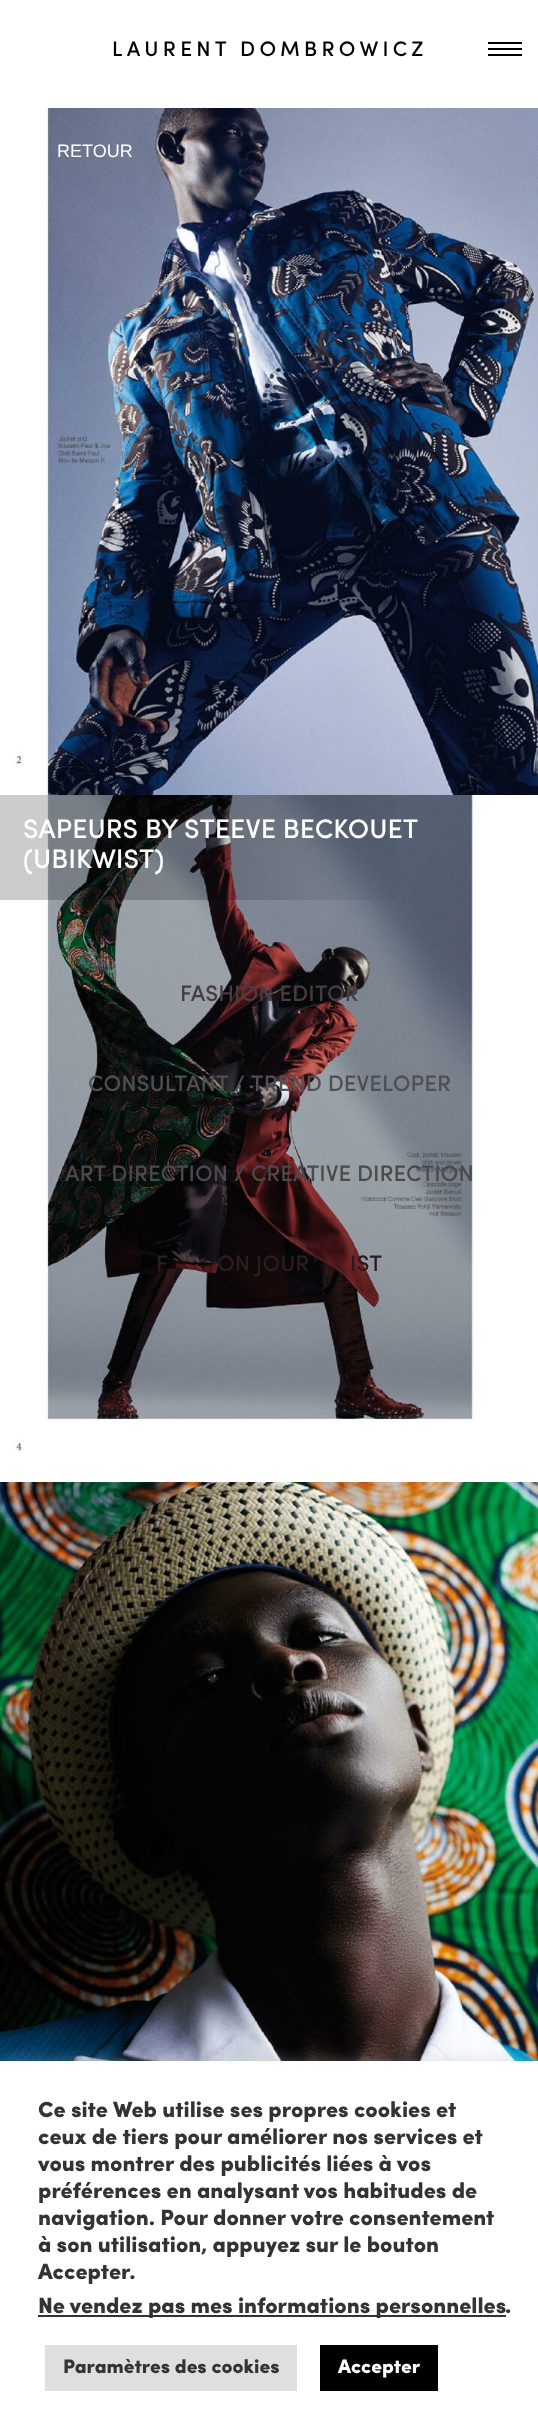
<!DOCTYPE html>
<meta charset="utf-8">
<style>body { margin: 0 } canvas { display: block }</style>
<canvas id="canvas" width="538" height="2435"></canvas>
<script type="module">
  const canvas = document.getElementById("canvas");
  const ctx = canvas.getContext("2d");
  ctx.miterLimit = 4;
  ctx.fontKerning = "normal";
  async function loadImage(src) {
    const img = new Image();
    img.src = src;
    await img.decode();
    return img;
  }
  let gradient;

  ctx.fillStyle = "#ffffff";
  ctx.fillRect(0, 0, 538, 2435);
  ctx.letterSpacing = "4.25px";
  ctx.font = "500 21px Sofia";
  ctx.fillStyle = "#000000";
  ctx.fillText("LAURENT DOMBROWICZ", 112, 56);
  ctx.fillRect(488, 48, 34, 2);
  ctx.fillRect(488, 42, 34, 2);
  ctx.fillRect(488, 54, 34, 2);
  ctx.drawImage(await loadImage("img1.png"), 12, 795, 465, 657);
  ctx.letterSpacing = "0px";
  ctx.font = "500 22.5px Sofia";
  ctx.fillStyle = "#463d41";
  ctx.fillText("FASHION EDITOR", 180, 1001);
  ctx.fillStyle = "#504e52";
  ctx.fillText("CONSULTANT / TREND DEVELOPER", 88, 1091);
  ctx.fillStyle = "#4b494b";
  ctx.fillText("ART DIRECTION / CREATIVE DIRECTION", 65, 1181);
  ctx.fillStyle = "#2d1c1e";
  ctx.fillText("F", 156, 1271);
  ctx.fillText("ON JOUR", 217, 1271);
  ctx.fillText("IST", 350, 1271);
  ctx.drawImage(await loadImage("img2.png"), 12, 108, 526, 687);
  ctx.font = "18px Liberation Sans";
  ctx.fillStyle = "#ffffff";
  ctx.fillText("RETOUR", 57, 157);
  gradient = ctx.createLinearGradient(0, 848, 453, 848);
  gradient.addColorStop(0.44, "rgba(0, 0, 0, 0.2)");
  gradient.addColorStop(0.93, "rgba(0, 0, 0, 0)");
  ctx.fillStyle = gradient;
  ctx.fillRect(0, 795, 397, 105);
  ctx.font = "500 27px Sofia";
  ctx.fillStyle = "#ffffff";
  ctx.fillText("SAPEURS BY STEEVE BECKOUET", 23, 838);
  ctx.fillText("(UBIKWIST)", 23, 868);
  ctx.drawImage(await loadImage("img3.png"), 0, 1482, 538, 579);
  ctx.fillStyle = "rgba(172, 171, 171, 0.3)";
  ctx.filter = "blur(7.5px)";
  ctx.beginPath();
  ctx.rect(0, 2060, 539, 375);
  ctx.fill();
  ctx.filter = "none";
  ctx.fillStyle = "#ffffff";
  ctx.fillRect(0, 2061, 538, 374);
  ctx.font = "900 22px Sofia";
  ctx.fillStyle = "#333333";
  ctx.fillText("Ce site Web utilise ses propres cookies et", 38, 2117);
  ctx.fillText("ceux de tiers pour améliorer nos services et", 38, 2144);
  ctx.fillText("vous montrer des publicités liées à vos", 38, 2171);
  ctx.fillText("préférences en analysant vos habitudes de", 38, 2198);
  ctx.fillText("navigation. Pour donner votre consentement", 38, 2225);
  ctx.fillText("à son utilisation, appuyez sur le bouton", 38, 2252);
  ctx.fillText("Accepter.", 38, 2279);
  ctx.fillRect(38, 2315, 468, 2);
  ctx.fillText("Ne vendez pas mes informations personnelles", 38, 2313);
  ctx.fillText(".", 505, 2313);
  ctx.fillStyle = "#dedfe0";
  ctx.fillRect(45, 2345, 252, 46);
  ctx.font = "900 19.5px Sofia";
  ctx.fillStyle = "#333333";
  ctx.fillText("Paramètres des cookies", 63, 2373);
  ctx.fillStyle = "#000000";
  ctx.fillRect(320, 2345, 118, 46);
  ctx.fillStyle = "#ffffff";
  ctx.fillText("Accepter", 338, 2373);
</script>
